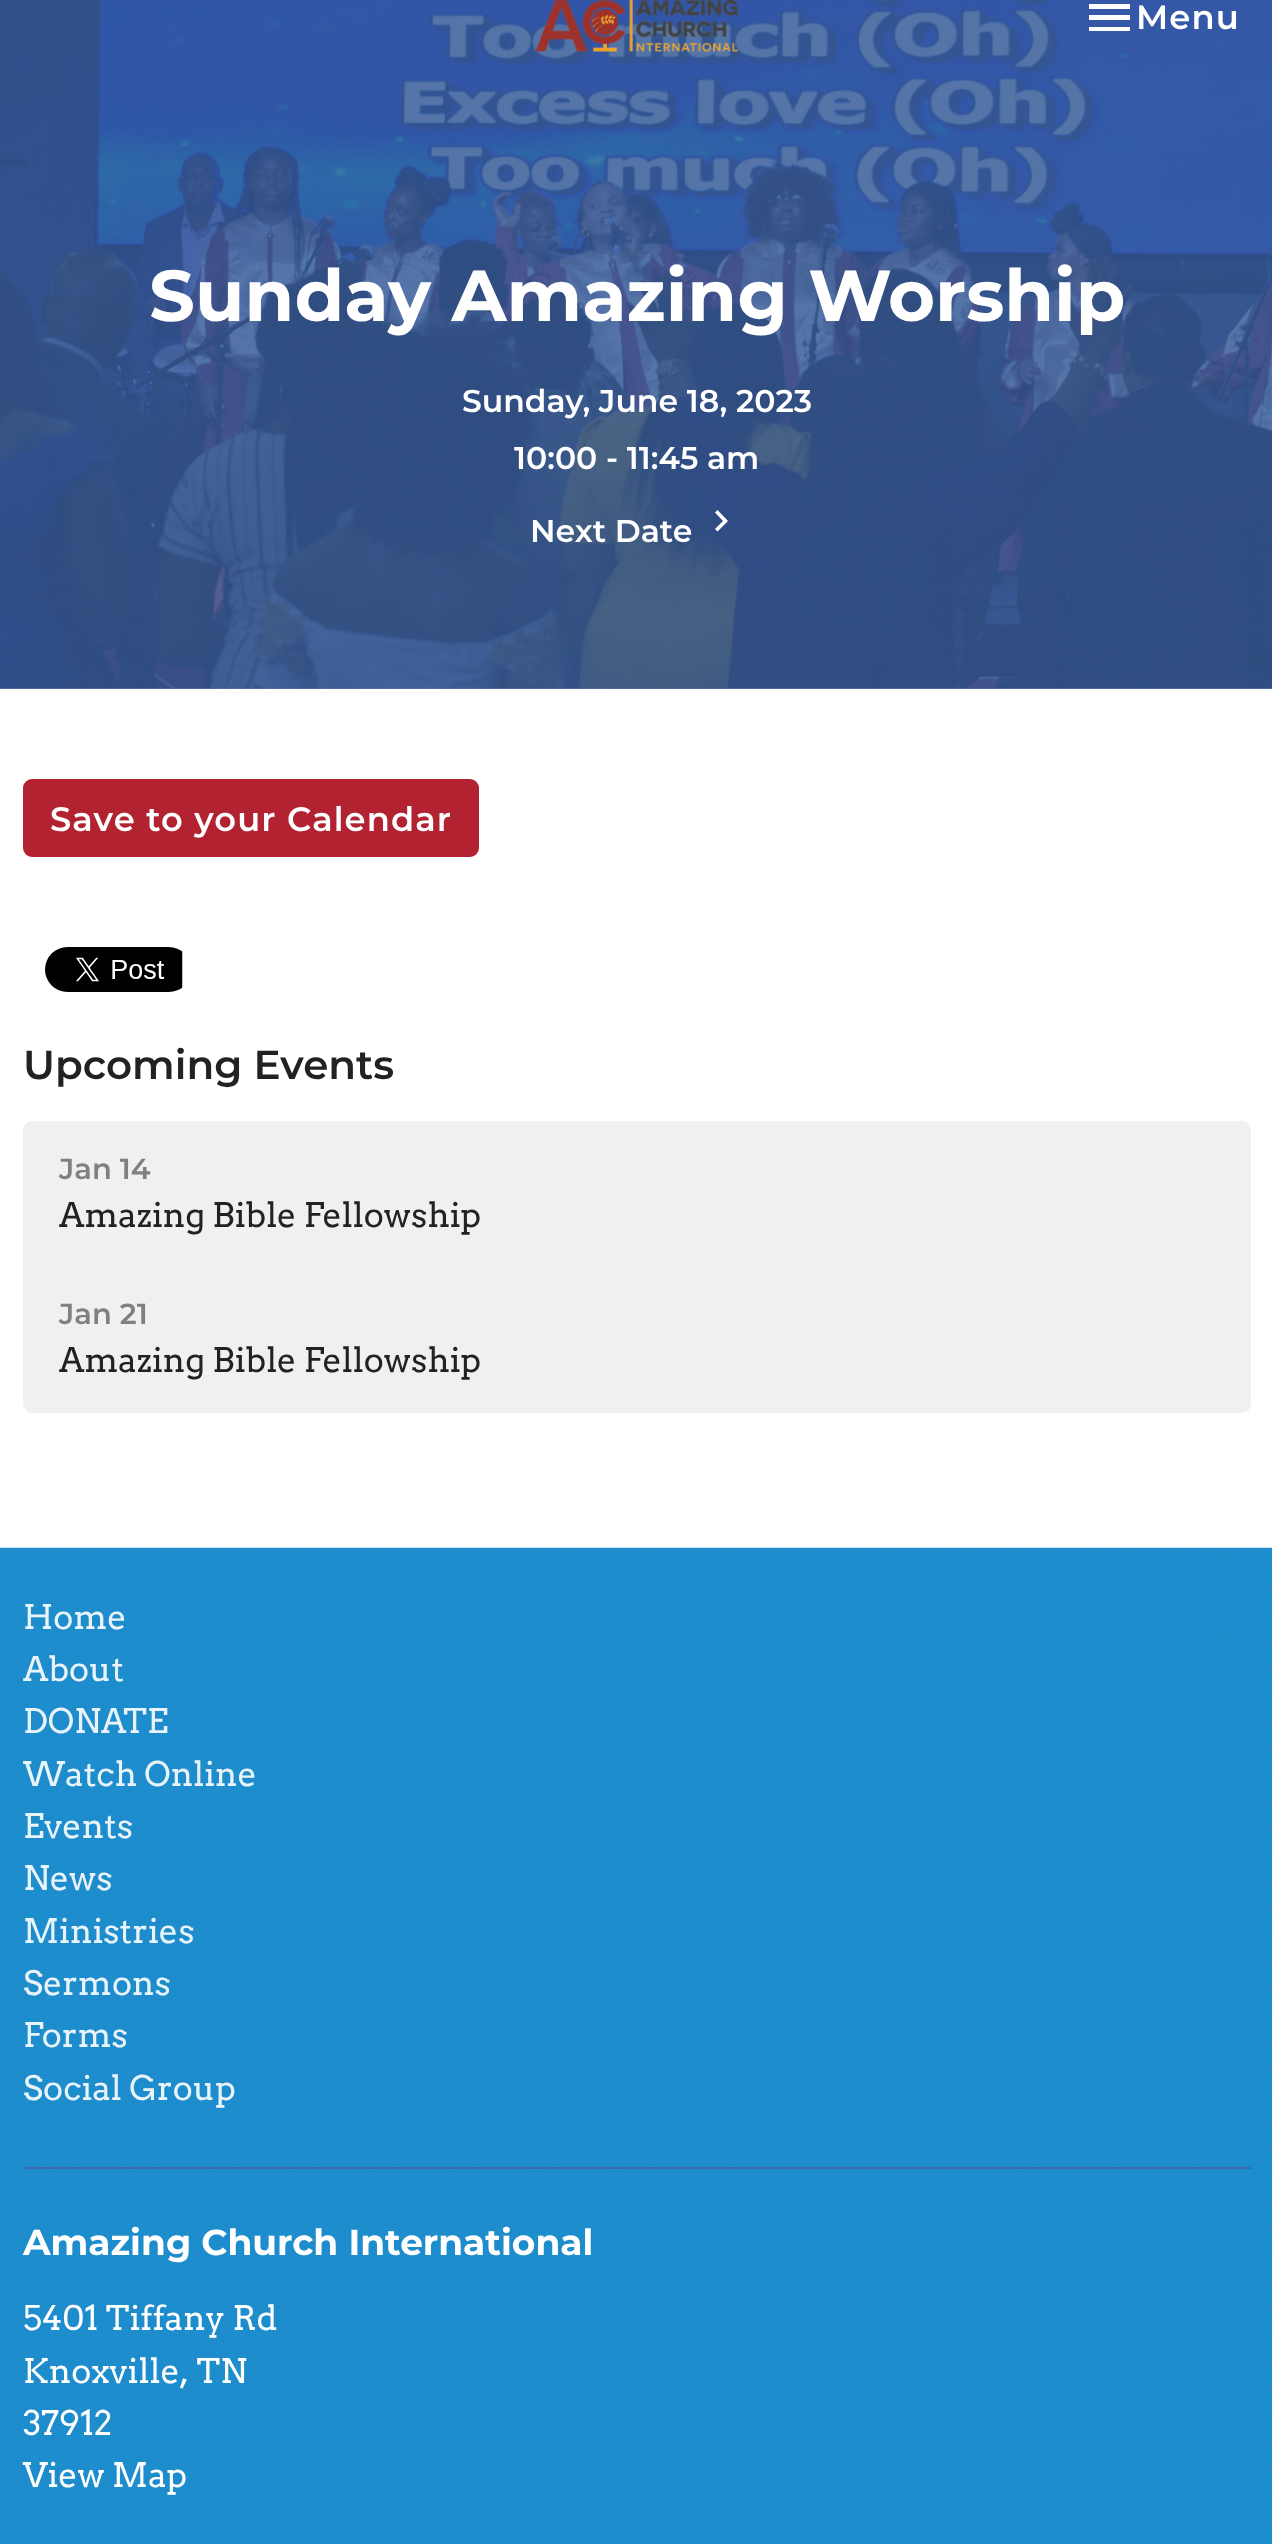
<!DOCTYPE html>
<meta charset="utf-8">
<style>body { margin: 0 } canvas { display: block }</style>
<canvas id="canvas" width="1272" height="2544"></canvas>
<script type="module">
  const canvas = document.getElementById("canvas");
  const ctx = canvas.getContext("2d");
  ctx.miterLimit = 4;
  ctx.fontKerning = "normal";
  async function loadImage(src) {
    const img = new Image();
    img.src = src;
    await img.decode();
    return img;
  }

  ctx.fillStyle = "#ffffff";
  ctx.fillRect(0, 0, 1272, 2544);
  ctx.fillStyle = "#5674a7";
  ctx.fillRect(0, 688, 1272, 1);
  ctx.drawImage(await loadImage("img2.png"), 0, 0, 1272, 689);
  ctx.drawImage(await loadImage("img1.png"), 535, 0, 203, 52);
  ctx.fillStyle = "#ffffff";
  ctx.beginPath();
  ctx.moveTo(1089, 31);
  ctx.lineTo(1130, 31);
  ctx.lineTo(1130, 27);
  ctx.lineTo(1089, 27);
  ctx.closePath();
  ctx.moveTo(1089, 20);
  ctx.lineTo(1130, 20);
  ctx.lineTo(1130, 15);
  ctx.lineTo(1089, 15);
  ctx.closePath();
  ctx.moveTo(1089, 4);
  ctx.lineTo(1089, 9);
  ctx.lineTo(1130, 9);
  ctx.lineTo(1130, 4);
  ctx.closePath();
  ctx.fill();
  ctx.letterSpacing = "1.1px";
  ctx.font = "600 33.75px Montserrat";
  ctx.fillText("Menu", 1136, 29);
  ctx.letterSpacing = "0px";
  ctx.font = "bold 72px Montserrat";
  ctx.fillText("Sunday Amazing Worship", 149, 321);
  ctx.font = "600 31.5px Montserrat";
  ctx.fillText("Sunday, June 18, 2023", 462, 412);
  ctx.fillText("10:00 - 11:45 am", 514, 469);
  ctx.fillText("Next Date", 530, 542);
  ctx.beginPath();
  ctx.moveTo(715, 529);
  ctx.lineTo(723, 521);
  ctx.lineTo(715, 512.5);
  ctx.lineTo(717.5, 510);
  ctx.lineTo(728, 521);
  ctx.lineTo(717.5, 531.5);
  ctx.closePath();
  ctx.fill();
  ctx.fillStyle = "#b32230";
  ctx.beginPath();
  ctx.roundRect(23, 779, 456, 78, 9);
  ctx.fill();
  ctx.letterSpacing = "1.1px";
  ctx.font = "600 33.75px Montserrat";
  ctx.fillStyle = "#ffffff";
  ctx.fillText("Save to your Calendar", 50, 831);
  ctx.drawImage(await loadImage("img3.png"), 45, 947, 138, 45);
  ctx.letterSpacing = "0px";
  ctx.font = "600 40.5px Montserrat";
  ctx.fillStyle = "#222222";
  ctx.fillText("Upcoming Events", 23, 1079);
  ctx.fillStyle = "#f0f0f0";
  ctx.beginPath();
  ctx.roundRect(23, 1121, 1228, 148, [9, 9, 0, 0]);
  ctx.fill();
  ctx.font = "600 29px Montserrat";
  ctx.fillStyle = "#808080";
  ctx.fillText("Jan 14", 59, 1179);
  ctx.font = "33.75px Arvo";
  ctx.fillStyle = "#222222";
  ctx.fillText("Amazing Bible Fellowship", 59, 1227);
  ctx.fillStyle = "#f0f0f0";
  ctx.beginPath();
  ctx.roundRect(23, 1267, 1228, 146, [0, 0, 9, 9]);
  ctx.fill();
  ctx.font = "600 29px Montserrat";
  ctx.fillStyle = "#808080";
  ctx.fillText("Jan 21", 59, 1324);
  ctx.font = "33.75px Arvo";
  ctx.fillStyle = "#222222";
  ctx.fillText("Amazing Bible Fellowship", 59, 1372);
  ctx.drawImage(await loadImage("img4.png"), 0, 1547, 1272, 997);
  ctx.fillStyle = "#e8f4fa";
  ctx.fillText("Home", 23, 1629);
  ctx.fillText("About", 23, 1681);
  ctx.fillText("DONATE", 23, 1733);
  ctx.fillText("Watch Online", 23, 1786);
  ctx.fillText("Events", 23, 1838);
  ctx.fillText("News", 23, 1890);
  ctx.fillText("Ministries", 23, 1943);
  ctx.fillText("Sermons", 23, 1995);
  ctx.fillText("Forms", 23, 2047);
  ctx.fillText("Social Group", 23, 2100);
  ctx.fillStyle = "#3e68ad";
  ctx.fillRect(23, 2167, 1228, 2);
  ctx.font = "bold 36px Montserrat";
  ctx.fillStyle = "#ffffff";
  ctx.fillText("Amazing Church International", 23, 2255);
  ctx.font = "33.75px Arvo";
  ctx.fillText("5401 Tiffany Rd", 23, 2330);
  ctx.fillText("Knoxville, TN", 23, 2383);
  ctx.fillText("37912", 23, 2435);
  ctx.fillText("View Map", 23, 2487);
</script>
